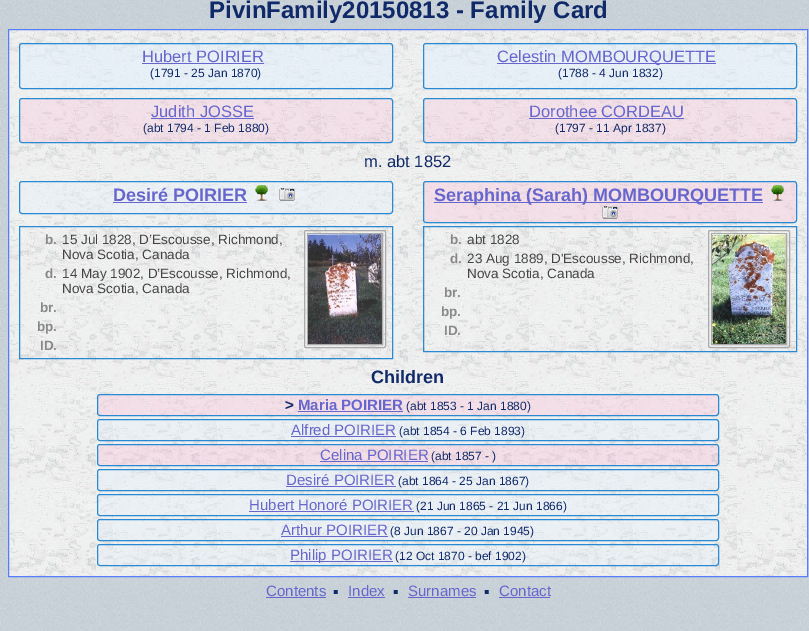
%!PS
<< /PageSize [809 631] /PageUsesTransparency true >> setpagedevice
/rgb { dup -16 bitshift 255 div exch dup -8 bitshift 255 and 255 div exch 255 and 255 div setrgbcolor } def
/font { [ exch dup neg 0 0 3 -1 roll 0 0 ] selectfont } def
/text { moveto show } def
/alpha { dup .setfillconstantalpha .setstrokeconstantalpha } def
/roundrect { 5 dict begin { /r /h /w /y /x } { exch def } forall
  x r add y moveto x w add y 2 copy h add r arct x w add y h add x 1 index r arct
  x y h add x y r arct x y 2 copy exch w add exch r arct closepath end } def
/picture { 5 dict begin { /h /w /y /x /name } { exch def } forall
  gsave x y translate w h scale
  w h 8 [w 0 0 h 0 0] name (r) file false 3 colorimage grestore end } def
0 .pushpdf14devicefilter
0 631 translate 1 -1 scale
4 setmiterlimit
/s1 { /LiberationSans-Bold 24 font 16#102A69 rgb } def
/s2 { /LiberationSans-Regular 16.5 font 16#6666CC rgb } def
/s3 { /LiberationSans-Regular 12 font 16#102A69 rgb } def
/s4 { /LiberationSans-Regular 16.5 font 16#102A69 rgb } def
/s5 { /LiberationSans-Bold 18 font 16#6666CC rgb } def
/s6 { /LiberationSans-Bold 13.5 font 16#888888 rgb } def
/s7 { /LiberationSans-Regular 13.5 font 16#444444 rgb } def
/s8 { /LiberationSans-Bold 18 font 16#102A69 rgb } def
/s9 { /LiberationSans-Bold 15 font 16#102A69 rgb } def
/s10 { /LiberationSans-Bold 15 font 16#6666CC rgb } def
/s11 { /LiberationSans-Regular 15 font 16#6666CC rgb } def
/s12 { /LiberationSans-Bold 27 font 16#102A69 rgb } def
16#FFFFFF rgb
0 0 809 631 rectfill
(pic1.raw) 0 0 809 631 picture
s1
(PivinFamily20150813 - Family Card) 209 18 text
(pic2.raw) 9 30 798 546 picture
16#567EFC rgb
8.5 29.5 799 547 rectstroke
0.51 alpha
16#E0EFFE rgb
19.5 43.5 373 45 2.5 roundrect fill
1 alpha
16#2989D3 rgb
19.5 43.5 373 45 2.5 roundrect stroke
s2
(Hubert POIRIER) 142 62 text
142 63 122 1 rectfill
s3
(\(1791 - 25 Jan 1870\)) 150 77 text
0.51 alpha
16#E0EFFE rgb
423.5 43.5 373 45 2.5 roundrect fill
1 alpha
16#2989D3 rgb
423.5 43.5 373 45 2.5 roundrect stroke
16#6666CC rgb
497 63 219 1 rectfill
s2
(Celestin MOMBOURQUETTE) 497 62 text
s3
(\(1788 - 4 Jun 1832\)) 558 77 text
0.28 alpha
16#FCB7D6 rgb
19.5 98.5 373 44 2.5 roundrect fill
1 alpha
16#2989D3 rgb
19.5 98.5 373 44 2.5 roundrect stroke
s2
(Judith JOSSE) 151 117 text
151 118 103 1 rectfill
s3
(\(abt 1794 - 1 Feb 1880\)) 143 132 text
0.28 alpha
16#FCB7D6 rgb
423.5 98.5 373 44 2.5 roundrect fill
1 alpha
16#2989D3 rgb
423.5 98.5 373 44 2.5 roundrect stroke
s2
(Dorothee CORDEAU) 529 117 text
529 118 155 1 rectfill
s3
(\(1797 - 11 Apr 1837\)) 555 132 text
s4
(m. abt 1852) 364 167 text
0.3 alpha
16#E0EFFE rgb
19.5 181.5 373 32 2.5 roundrect fill
1 alpha
16#2989D3 rgb
19.5 181.5 373 32 2.5 roundrect stroke
s5
(Desiré POIRIER) 113 201 text
113 202 134 1 rectfill
(pic3.raw) 255 185 13 16 picture
(pic4.raw) 279 188 16 13 picture
0.3 alpha
16#FCB7D6 rgb
423.5 181.5 373 41 2.5 roundrect fill
1 alpha
16#2989D3 rgb
423.5 181.5 373 41 2.5 roundrect stroke
16#6666CC rgb
434 202 329 1 rectfill
(Seraphina \(Sarah\) MOMBOURQUETTE) 434 201 text
(pic5.raw) 771 185 13 16 picture
(pic6.raw) 602 206 16 13 picture
16#2989D3 rgb
19.5 226.5 373 132 rectstroke
s6
(b.) 45 244 text
s7
(15 Jul 1828, D’Escousse, Richmond,) 62 244 text
(Nova Scotia, Canada) 62 259 text
16#AAAAAA rgb
304.5 230.5 81 117 1.5 roundrect stroke
307.5 233.5 75 111 rectstroke
(pic7.raw) 308 234 74 110 picture
s6
(d.) 45 278 text
s7
(14 May 1902, D’Escousse, Richmond,) 62 278 text
(Nova Scotia, Canada) 62 293 text
s6
(br.) 40 312 text
(bp.) 37 331 text
(ID.) 40 350 text
16#2989D3 rgb
423.5 226.5 373 125 rectstroke
s6
(b.) 450 244 text
s7
(abt 1828) 467 244 text
16#AAAAAA rgb
708.5 230.5 81 117 1.5 roundrect stroke
711.5 233.5 75 111 rectstroke
(pic8.raw) 712 234 74 110 picture
s6
(d.) 450 263 text
s7
(23 Aug 1889, D'Escousse, Richmond,) 467 263 text
(Nova Scotia, Canada) 467 278 text
s6
(br.) 444 297 text
(bp.) 441 316 text
(ID.) 444 335 text
s8
(Children) 371 383 text
0.3 alpha
16#FCB7D6 rgb
97.5 394.5 621 21 2.5 roundrect fill
1 alpha
16#2989D3 rgb
97.5 394.5 621 21 2.5 roundrect stroke
s9
(>) 285 410 text
s10
(Maria POIRIER) 298 410 text
298 411 105 1 rectfill
s3
(\(abt 1853 - 1 Jan 1880\)) 406 410 text
0.3 alpha
16#E0EFFE rgb
97.5 419.5 621 21 2.5 roundrect fill
1 alpha
16#2989D3 rgb
97.5 419.5 621 21 2.5 roundrect stroke
s11
(Alfred POIRIER) 291 435 text
291 436 105 1 rectfill
s3
(\(abt 1854 - 6 Feb 1893\)) 399 435 text
0.3 alpha
16#FCB7D6 rgb
97.5 444.5 621 21 2.5 roundrect fill
1 alpha
16#2989D3 rgb
97.5 444.5 621 21 2.5 roundrect stroke
s11
(Celina POIRIER) 320 460 text
320 461 108 1 rectfill
s3
(\(abt 1857 - \)) 431 460 text
0.3 alpha
16#E0EFFE rgb
97.5 469.5 621 21 2.5 roundrect fill
1 alpha
16#2989D3 rgb
97.5 469.5 621 21 2.5 roundrect stroke
s11
(Desiré POIRIER) 286 485 text
286 486 110 1 rectfill
s3
(\(abt 1864 - 25 Jan 1867\)) 398 485 text
0.3 alpha
16#E0EFFE rgb
97.5 494.5 621 21 2.5 roundrect fill
1 alpha
16#2989D3 rgb
97.5 494.5 621 21 2.5 roundrect stroke
s11
(Hubert Honoré POIRIER) 249 510 text
249 511 165 1 rectfill
s3
(\(21 Jun 1865 - 21 Jun 1866\)) 416 510 text
0.3 alpha
16#E0EFFE rgb
97.5 519.5 621 21 2.5 roundrect fill
1 alpha
16#2989D3 rgb
97.5 519.5 621 21 2.5 roundrect stroke
s11
(Arthur POIRIER) 281 535 text
281 536 107 1 rectfill
s3
(\(8 Jun 1867 - 20 Jan 1945\)) 390 535 text
0.3 alpha
16#E0EFFE rgb
97.5 544.5 621 21 2.5 roundrect fill
1 alpha
16#2989D3 rgb
97.5 544.5 621 21 2.5 roundrect stroke
16#6666CC rgb
290 561 103 1 rectfill
s11
(Philip POIRIER) 290 560 text
s3
(\(12 Oct 1870 - bef 1902\)) 395 560 text
s11
(Contents) 266 596 text
266 597 60 1 rectfill
s12
(·) 332 601 text
s11
(Index) 348 596 text
348 597 37 1 rectfill
s12
(·) 392 601 text
s11
(Surnames) 408 596 text
408 597 68 1 rectfill
s12
(·) 483 601 text
s11
(Contact) 499 596 text
499 597 51 1 rectfill
.poppdf14devicefilter showpage
